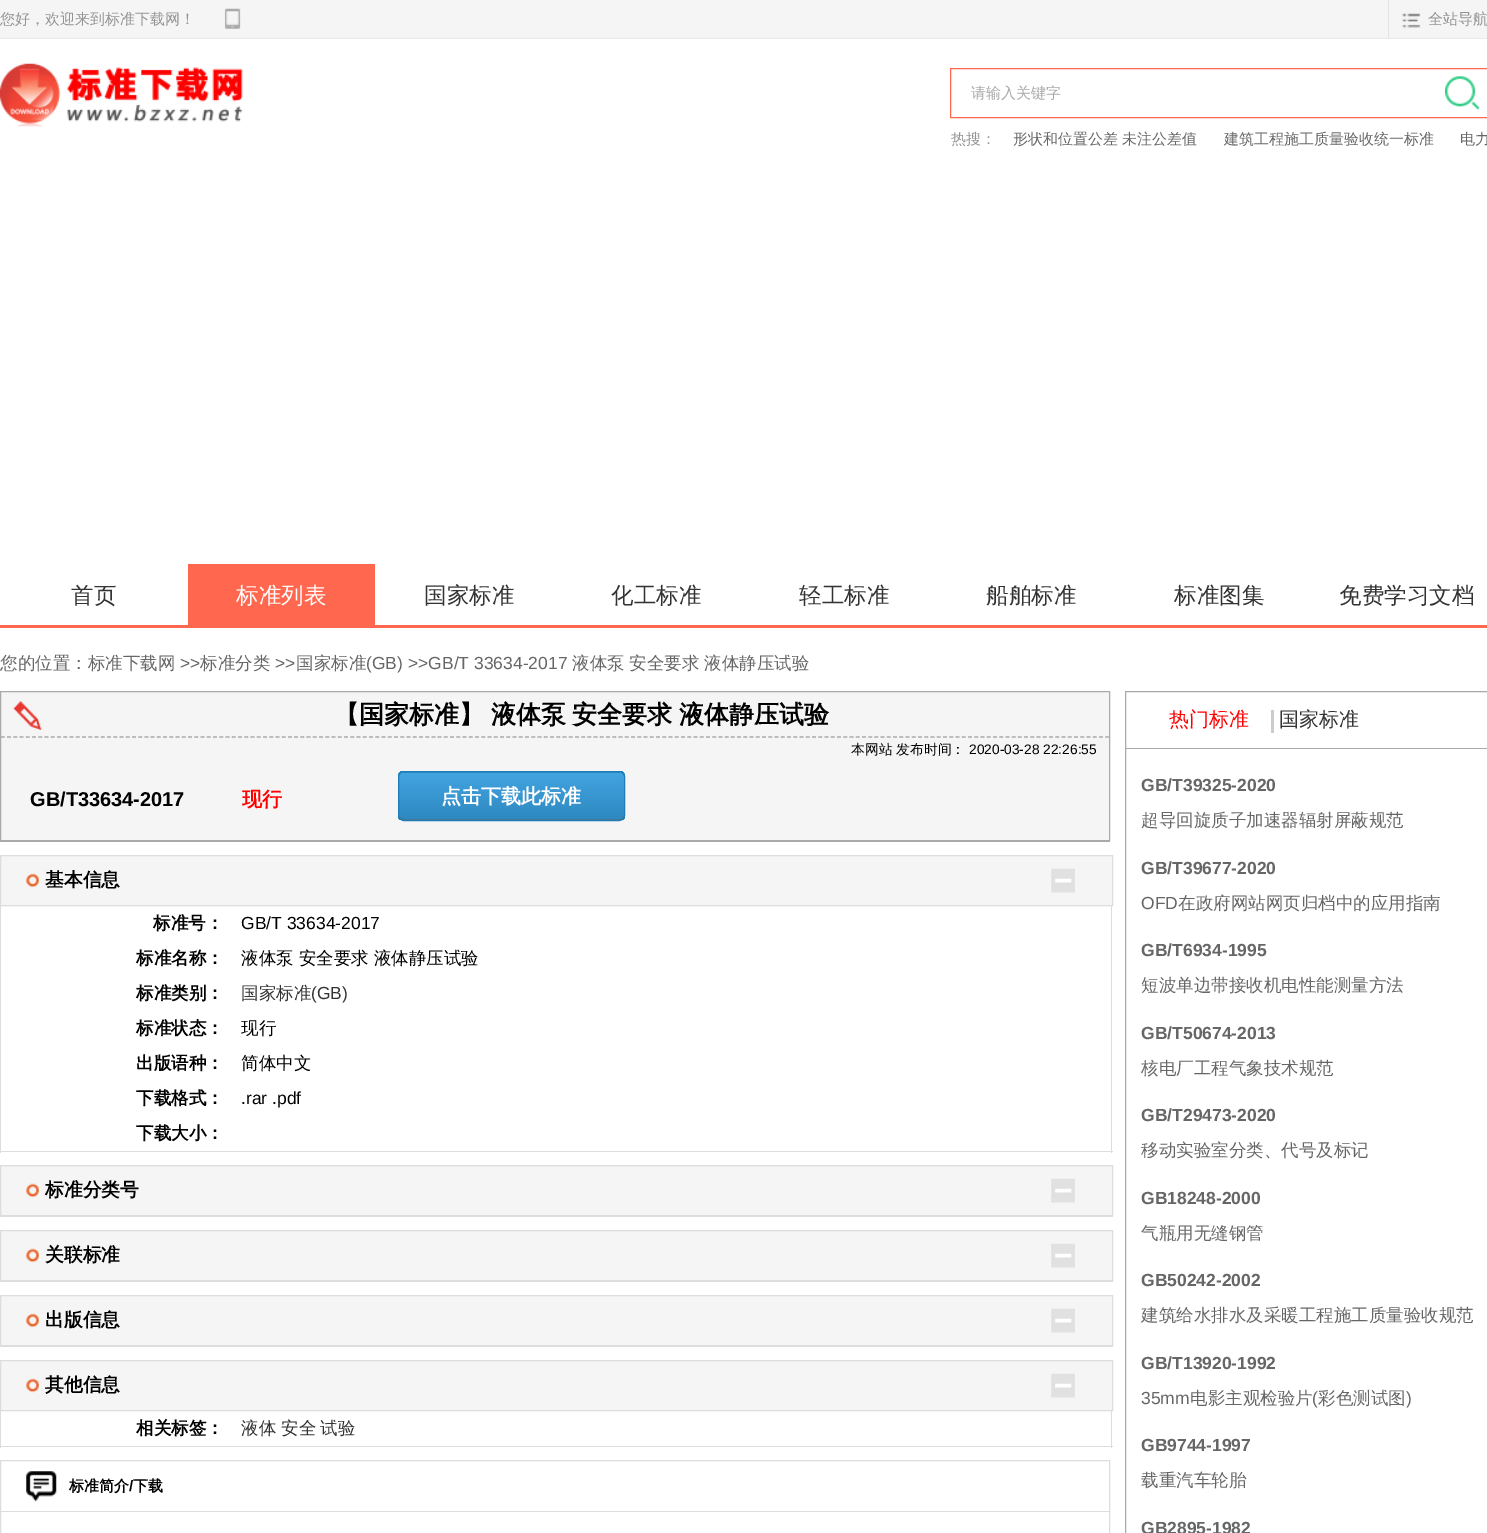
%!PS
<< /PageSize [1487 1533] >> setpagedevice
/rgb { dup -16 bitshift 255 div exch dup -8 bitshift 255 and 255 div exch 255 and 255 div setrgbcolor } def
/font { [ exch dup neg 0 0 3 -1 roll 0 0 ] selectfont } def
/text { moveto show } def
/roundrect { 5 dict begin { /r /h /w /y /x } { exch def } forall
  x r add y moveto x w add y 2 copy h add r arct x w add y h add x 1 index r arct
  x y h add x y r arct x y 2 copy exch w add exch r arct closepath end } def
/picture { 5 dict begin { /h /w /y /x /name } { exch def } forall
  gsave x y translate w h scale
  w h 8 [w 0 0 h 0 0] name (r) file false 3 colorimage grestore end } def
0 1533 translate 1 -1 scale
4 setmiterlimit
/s1 { /WenQuanYiZenHei-Medium 15 font 16#949494 rgb } def
/s2 { /WenQuanYiZenHei-Medium 15 font 16#A8A8A8 rgb } def
/s3 { /WenQuanYiZenHei-Medium 15 font 16#666666 rgb } def
/s4 { /WenQuanYiZenHei-Medium 22.5 font 16#333333 rgb } def
/s5 { /WenQuanYiZenHei-Medium 22.5 font 16#FFFFFF rgb } def
/s6 { /WenQuanYiZenHei-Medium 17.5 font 16#666666 rgb } def
/s7 { /LiberationSans-Regular 17.5 font 16#666666 rgb } def
/s8 { /WenQuanYiZenHei-Bold 25 font 16#000000 rgb } def
/s9 { /WenQuanYiZenHei-Medium 13.75 font 16#000000 rgb } def
/s10 { /LiberationSans-Regular 13.75 font 16#000000 rgb } def
/s11 { /LiberationSans-Bold 20 font 16#000000 rgb } def
/s12 { /WenQuanYiZenHei-Bold 20 font 16#FF0000 rgb } def
/s13 { /WenQuanYiZenHei-Bold 20 font 16#FFFFFF rgb } def
/s14 { /WenQuanYiZenHei-Bold 18.75 font 16#000000 rgb } def
/s15 { /WenQuanYiZenHei-Bold 17.5 font 16#000000 rgb } def
/s16 { /LiberationSans-Regular 17.5 font 16#000000 rgb } def
/s17 { /WenQuanYiZenHei-Medium 17.5 font 16#000000 rgb } def
/s18 { /WenQuanYiZenHei-Medium 17.5 font 16#333333 rgb } def
/s19 { /LiberationSans-Regular 17.5 font 16#333333 rgb } def
/s20 { /WenQuanYiZenHei-Bold 15 font 16#000000 rgb } def
/s21 { /LiberationSans-Bold 15 font 16#000000 rgb } def
/s22 { /WenQuanYiZenHei-Medium 20 font 16#FF0000 rgb } def
/s23 { /WenQuanYiZenHei-Medium 20 font 16#333333 rgb } def
/s24 { /LiberationSans-Bold 17.5 font 16#666666 rgb } def
16#FFFFFF rgb
0 0 1487 1533 rectfill
16#F5F5F5 rgb
0 0 1487 38 rectfill
16#E9E9E9 rgb
0 38 1487 1 rectfill
s1
(您好，欢迎来到标准下载网！) 0 24 text
(pic1.raw) 224 8 17 21 picture
16#E3E3E3 rgb
1388 0 1 38 rectfill
(pic2.raw) 1402 13 19 15 picture
s1
(全站导航) 1428 24 text
(pic3.raw) 0 63 243 64 picture
16#FF684F rgb
950.5 68.5 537 49 rectstroke
s2
(请输入关键字) 971 98 text
(pic4.raw) 1445 76 36 35 picture
s1
(热搜：) 951 144 text
s3
(形状和位置公差 未注公差值) 1013 144 text
(建筑工程施工质量验收统一标准) 1224 144 text
(电力) 1460 144 text
16#FF684F rgb
0 625 1487 3 rectfill
s4
(首页) 71 603 text
16#FF684F rgb
188 564 187 61 rectfill
s5
(标准列表) 236 603 text
s4
(国家标准) 424 603 text
(化工标准) 611 603 text
(轻工标准) 799 603 text
(船舶标准) 986 603 text
(标准图集) 1174 603 text
(免费学习文档) 1339 603 text
s6
(您的位置：标准下载网) 0 669 text
s7
(>>) 180 669 text
s6
(标准分类) 200 669 text
s7
(>>) 275 669 text
s6
(国家标准) 296 669 text
s7
(\(GB\) >>GB/T 33634-2017) 366 669 text
s6
(液体泵) 572 669 text
(安全要求) 629 669 text
(液体静压试验) 704 669 text
16#F5F5F5 rgb
0.5 691.5 moveto 1109.5 691.5 lineto 1109.5 840.5 lineto 0.5 840.5 lineto closepath gsave fill grestore
16#AAAAAA rgb
stroke
(pic5.raw) 13 701 29 29 picture
1.2 setlinewidth
[3.75 2.49] 0 setdash
1 737 moveto 1109 737 lineto stroke
s8
(【国家标准】) 334 723 text
491 723 moveto -1 0 32 (液体泵 安全要求 液体静压试验) widthshow
s9
(本网站 发布时间：) 851 754 text
s10
(2020-03-28 22:26:55) 969 754 text
s11
(GB/T33634-2017) 30 806 text
s12
(现行) 242 806 text
gsave
398 771 227 50 6 roundrect clip newpath
gsave 398 771 moveto 625 771 lineto 625 773 lineto 398 773 lineto closepath clip newpath
<< /ShadingType 2 /ColorSpace /DeviceRGB /Coords [511 725 511 773] /Extend [true true] /Function << /FunctionType 2 /Domain [0 1] /C0 [0.259 0.643 0.878] /C1 [0.18 0.533 0.753] /N 1 >> >> shfill grestore
gsave 398 773 moveto 625 773 lineto 625 820 lineto 398 820 lineto closepath clip newpath
<< /ShadingType 2 /ColorSpace /DeviceRGB /Coords [511 773 511 820] /Extend [true true] /Function << /FunctionType 2 /Domain [0 1] /C0 [0.259 0.643 0.878] /C1 [0.18 0.533 0.753] /N 1 >> >> shfill grestore
grestore
16#497897 rgb
399 814 moveto 399 815 lineto 399 818 401 820 404 820 curveto 619 820 lineto 622 820 624 818 624 815 curveto 624 814 lineto 624 817 622 819 619 819 curveto 404 819 lineto 401 819 399 817 399 814 curveto closepath fill
16#1E7DB9 rgb
1 setlinewidth
[] 0 setdash
398.5 771.5 226 49 5.5 roundrect stroke
s13
(点击下载此标准) 441 803 text
16#AAAAAA rgb
0 841 1110 1 rectfill
16#F5F5F5 rgb
0.5 855.5 moveto 1112.5 855.5 lineto 1112.5 905.5 lineto 0.5 905.5 lineto closepath gsave fill grestore
16#DDDDDD rgb
stroke
(pic6.raw) 26 873 13 15 picture
s14
(基本信息) 45 886 text
(pic7.raw) 1051 868 24 25 picture
16#DDDDDD rgb
1111 906 1 247 rectfill
0 1151 1113 1 rectfill
0 906 1 247 rectfill
s15
(标准号：) 153 929 text
s16
(GB/T 33634-2017) 241 929 text
s15
(标准名称：) 136 964 text
s17
(液体泵 安全要求 液体静压试验) 241 964 text
s15
(标准类别：) 136 999 text
s18
(国家标准) 241 999 text
s19
(\(GB\)) 311 999 text
s15
(标准状态：) 136 1034 text
s17
(现行) 241 1034 text
s15
(出版语种：) 136 1069 text
s17
(简体中文) 241 1069 text
s15
(下载格式：) 136 1104 text
s16
(.rar .pdf) 241 1104 text
s15
(下载大小：) 136 1139 text
16#F5F5F5 rgb
0.5 1165.5 moveto 1112.5 1165.5 lineto 1112.5 1215.5 lineto 0.5 1215.5 lineto closepath gsave fill grestore
16#DDDDDD rgb
stroke
(pic6.raw) 26 1183 13 15 picture
s14
(标准分类号) 45 1196 text
(pic7.raw) 1051 1178 24 25 picture
16#DDDDDD rgb
0 1216 1113 1 rectfill
16#F5F5F5 rgb
0.5 1230.5 moveto 1112.5 1230.5 lineto 1112.5 1280.5 lineto 0.5 1280.5 lineto closepath gsave fill grestore
16#DDDDDD rgb
stroke
(pic6.raw) 26 1248 13 15 picture
s14
(关联标准) 45 1261 text
(pic7.raw) 1051 1243 24 25 picture
16#DDDDDD rgb
0 1281 1113 1 rectfill
16#F5F5F5 rgb
0.5 1295.5 moveto 1112.5 1295.5 lineto 1112.5 1345.5 lineto 0.5 1345.5 lineto closepath gsave fill grestore
16#DDDDDD rgb
stroke
(pic6.raw) 26 1313 13 15 picture
s14
(出版信息) 45 1326 text
(pic7.raw) 1051 1308 24 25 picture
16#DDDDDD rgb
0 1346 1113 1 rectfill
16#F5F5F5 rgb
0.5 1360.5 moveto 1112.5 1360.5 lineto 1112.5 1410.5 lineto 0.5 1410.5 lineto closepath gsave fill grestore
16#DDDDDD rgb
stroke
(pic6.raw) 26 1378 13 15 picture
s14
(其他信息) 45 1391 text
(pic7.raw) 1051 1373 24 25 picture
16#DDDDDD rgb
1111 1411 1 37 rectfill
0 1446 1113 1 rectfill
0 1411 1 37 rectfill
s15
(相关标签：) 136 1434 text
s18
(液体) 241 1434 text
(安全) 281 1434 text
(试验) 320 1434 text
16#DDDDDD rgb
0.5 1460.5 1109 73 rectstroke
1 1511 1108 1 rectfill
(pic8.raw) 26 1471 31 31 picture
s20
(标准简介) 69 1491 text
s21
(/) 129 1491 text
s20
(下载) 133 1491 text
16#AAAAAA rgb
1125.5 691.5 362 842 rectstroke
1126 748 361 1 rectfill
s22
(热门标准) 1169 726 text
16#CCCCCC rgb
1271 710 3 23 rectfill
s23
(国家标准) 1279 726 text
s24
(GB/T39325-2020) 1141 791 text
s6
(超导回旋质子加速器辐射屏蔽规范) 1141 826 text
s24
(GB/T39677-2020) 1141 874 text
s7
(OFD) 1141 909 text
s6
(在政府网站网页归档中的应用指南) 1178 909 text
s24
(GB/T6934-1995) 1141 956 text
s6
(短波单边带接收机电性能测量方法) 1141 991 text
s24
(GB/T50674-2013) 1141 1039 text
s6
(核电厂工程气象技术规范) 1141 1074 text
s24
(GB/T29473-2020) 1141 1121 text
s6
(移动实验室分类、代号及标记) 1141 1156 text
s24
(GB18248-2000) 1141 1204 text
s6
(气瓶用无缝钢管) 1141 1239 text
s24
(GB50242-2002) 1141 1286 text
s6
(建筑给水排水及采暖工程施工质量验收规范) 1141 1321 text
s24
(GB/T13920-1992) 1141 1369 text
s7
(35mm) 1141 1404 text
s6
(电影主观检验片) 1190 1404 text
s7
(\() 1312 1404 text
s6
(彩色测试图) 1318 1404 text
s7
(\)) 1406 1404 text
s24
(GB9744-1997) 1141 1451 text
s6
(载重汽车轮胎) 1141 1486 text
s24
(GB2895-1982) 1141 1534 text
showpage
